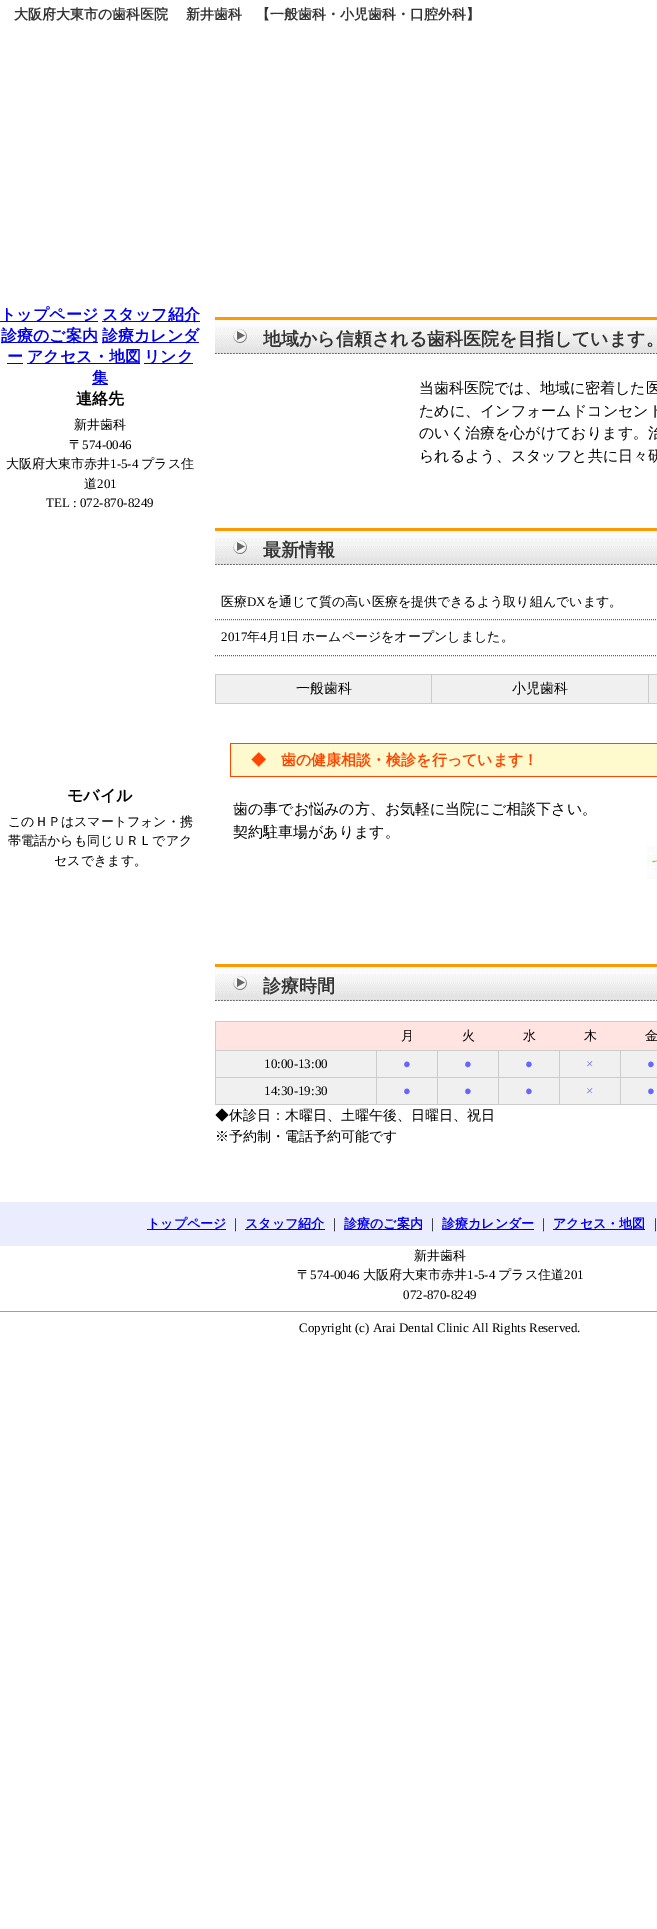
%!PS
<< /PageSize [657 1929] >> setpagedevice
/rgb { dup -16 bitshift 255 div exch dup -8 bitshift 255 and 255 div exch 255 and 255 div setrgbcolor } def
/font { [ exch dup neg 0 0 3 -1 roll 0 0 ] selectfont } def
/text { moveto show } def
/picture { 5 dict begin { /h /w /y /x /name } { exch def } forall
  gsave x y translate w h scale
  w h 8 [w 0 0 h 0 0] name (r) file false 3 colorimage grestore end } def
0 1929 translate 1 -1 scale
4 setmiterlimit
/s1 { /WenQuanYiZenHei-Bold 16 font 16#0000EE rgb } def
/s2 { /WenQuanYiZenHei-Bold 16 font 16#000000 rgb } def
/s3 { /WenQuanYiZenHei-Medium 13 font 16#000000 rgb } def
/s4 { /LiberationSerif-Regular 13 font 16#000000 rgb } def
/s5 { /WenQuanYiZenHei-Bold 18 font 16#333333 rgb } def
/s6 { /WenQuanYiZenHei-Medium 15 font 16#000000 rgb } def
/s7 { /WenQuanYiZenHei-Medium 14 font 16#000000 rgb } def
/s8 { /WenQuanYiZenHei-Bold 15 font 16#FF4500 rgb } def
/s9 { /LiberationSerif-Regular 13 font 16#6666FF rgb } def
/s10 { /WenQuanYiZenHei-Bold 13 font 16#0000EE rgb } def
16#FFFFFF rgb
0 0 657 1929 rectfill
/WenQuanYiZenHei-Bold 14 font
16#333333 rgb
14 19 moveto -1 0 32 (大阪府大東市の歯科医院 　新井歯科　【一般歯科・小児歯科・口腔外科】) widthshow
16#0000EE rgb
0 321 98 1 rectfill
s1
(トップページ) 0 320 text
102 321 98 1 rectfill
(スタッフ紹介) 102 320 text
1 342 97 1 rectfill
(診療のご案内) 1 341 text
102 342 97 1 rectfill
(診療カレンダ) 102 341 text
(ー) 7 362 text
7 363 16 1 rectfill
27 363 113 1 rectfill
(アクセス・地図) 27 362 text
144 363 49 1 rectfill
(リンク) 144 362 text
92 384 16 1 rectfill
(集) 92 383 text
s2
(連絡先) 76 404 text
s3
(新井歯科) 74 429 text
(〒) 69 449 text
s4
(574-0046) 82 449 text
s3
(大阪府大東市赤井) 6 468 text
s4
(1-5-4) 110 468 text
s3
(プラス住) 141 468 text
(道) 84 488 text
s4
(201) 97 488 text
(TEL : 072-870-8249) 46 507 text
s2
(モバイル) 67 801 text
s3
(このＨＰはスマートフォン・携) 8 826 text
(帯電話からも同じＵＲＬでアク) 8 845 text
(セスできます。) 54 865 text
(pic1.raw) 215 317 442 37 picture
s5
(地域から信頼される歯科医院を目指しています。) 263 345 text
s6
(当歯科医院では、地域に密着した医) 419 393 text
(ために、インフォームドコンセント) 419 416 text
(のいく治療を心がけております。治) 419 438 text
(られるよう、スタッフと共に日々研) 419 461 text
(pic1.raw) 215 528 442 37 picture
s5
(最新情報) 263 556 text
16#666666 rgb
[1 1] 0 setdash
215 619.5 moveto 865 619.5 lineto stroke
s3
(医療) 221 606 text
s4
(DX) 247 606 text
s3
(を通じて質の高い医療を提供できるよう取り組んでいます。) 266 606 text
16#666666 rgb
215 655.5 moveto 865 655.5 lineto stroke
s4
(2017) 221 641 text
s3
(年) 247 641 text
s4
(4) 260 641 text
s3
(月) 267 641 text
s4
(1) 280 641 text
/WenQuanYiZenHei-Medium 13 font
286 641 moveto -1 0 32 (日 ホームページをオープンしました。) widthshow
16#CCCCCC rgb
215 674 442 30 rectfill
16#F0F0F0 rgb
216 675 215 28 rectfill
s7
(一般歯科) 296 693 text
16#F0F0F0 rgb
432 675 216 28 rectfill
s7
(小児歯科) 512 693 text
16#F0F0F0 rgb
649 675 8 28 rectfill
16#FF4500 rgb
230 743 427 34 rectfill
16#FFFACD rgb
231 744 426 32 rectfill
s8
(◆　歯の健康相談・検診を行っています！) 251 765 text
s6
(歯の事でお悩みの方、お気軽に当院にご相談下さい。) 233 814 text
(契約駐車場があります。) 233 837 text
(pic2.raw) 647 846 10 33 picture
(pic1.raw) 215 964 442 37 picture
s5
(診療時間) 263 992 text
16#CCCCCC rgb
215 1021 442 84 rectfill
16#FFE4E1 rgb
216 1022 441 28 rectfill
s3
(月) 401 1040 text
(火) 462 1040 text
(水) 523 1040 text
(木) 584 1040 text
(金) 645 1040 text
16#F0F0F0 rgb
216 1051 160 26 rectfill
s4
(10:00-13:00) 264 1068 text
16#F0F0F0 rgb
377 1051 60 26 rectfill
s9
(●) 403 1068 text
16#F0F0F0 rgb
438 1051 60 26 rectfill
s9
(●) 464 1068 text
16#F0F0F0 rgb
499 1051 60 26 rectfill
s9
(●) 525 1068 text
16#F0F0F0 rgb
560 1051 60 26 rectfill
s9
(×) 586 1068 text
16#F0F0F0 rgb
621 1051 36 26 rectfill
s9
(●) 647 1068 text
16#F0F0F0 rgb
216 1078 160 26 rectfill
s4
(14:30-19:30) 264 1095 text
16#F0F0F0 rgb
377 1078 60 26 rectfill
s9
(●) 403 1095 text
16#F0F0F0 rgb
438 1078 60 26 rectfill
s9
(●) 464 1095 text
16#F0F0F0 rgb
499 1078 60 26 rectfill
s9
(●) 525 1095 text
16#F0F0F0 rgb
560 1078 60 26 rectfill
s9
(×) 586 1095 text
16#F0F0F0 rgb
621 1078 36 26 rectfill
s9
(●) 647 1095 text
s7
(◆休診日：木曜日、土曜午後、日曜日、祝日) 215 1120 text
(※予約制・電話予約可能です) 215 1141 text
16#ECECFF rgb
0 1202 657 44 rectfill
16#0000EE rgb
147 1229 79 1 rectfill
s10
(トップページ) 147 1228 text
s3
(｜) 229 1228 text
16#0000EE rgb
245 1229 80 1 rectfill
s10
(スタッフ紹介) 245 1228 text
s3
(｜) 328 1228 text
16#0000EE rgb
344 1229 78 1 rectfill
s10
(診療のご案内) 344 1228 text
s3
(｜) 426 1228 text
16#0000EE rgb
442 1229 92 1 rectfill
s10
(診療カレンダー) 442 1228 text
s3
(｜) 537 1228 text
16#0000EE rgb
553 1229 92 1 rectfill
s10
(アクセス・地図) 553 1228 text
s3
(｜) 649 1228 text
(新井歯科) 414 1260 text
(〒) 297 1279 text
s4
(574-0046) 310 1279 text
s3
(大阪府大東市赤井) 363 1279 text
s4
(1-5-4) 467 1279 text
s3
(プラス住道) 498 1279 text
s4
(201) 564 1279 text
(072-870-8249) 403 1299 text
16#9F9F9F rgb
0 1311 657 1 rectfill
s4
(Copyright \(c\) Arai Dental Clinic All Rights Reserved.) 299 1332 text
showpage
